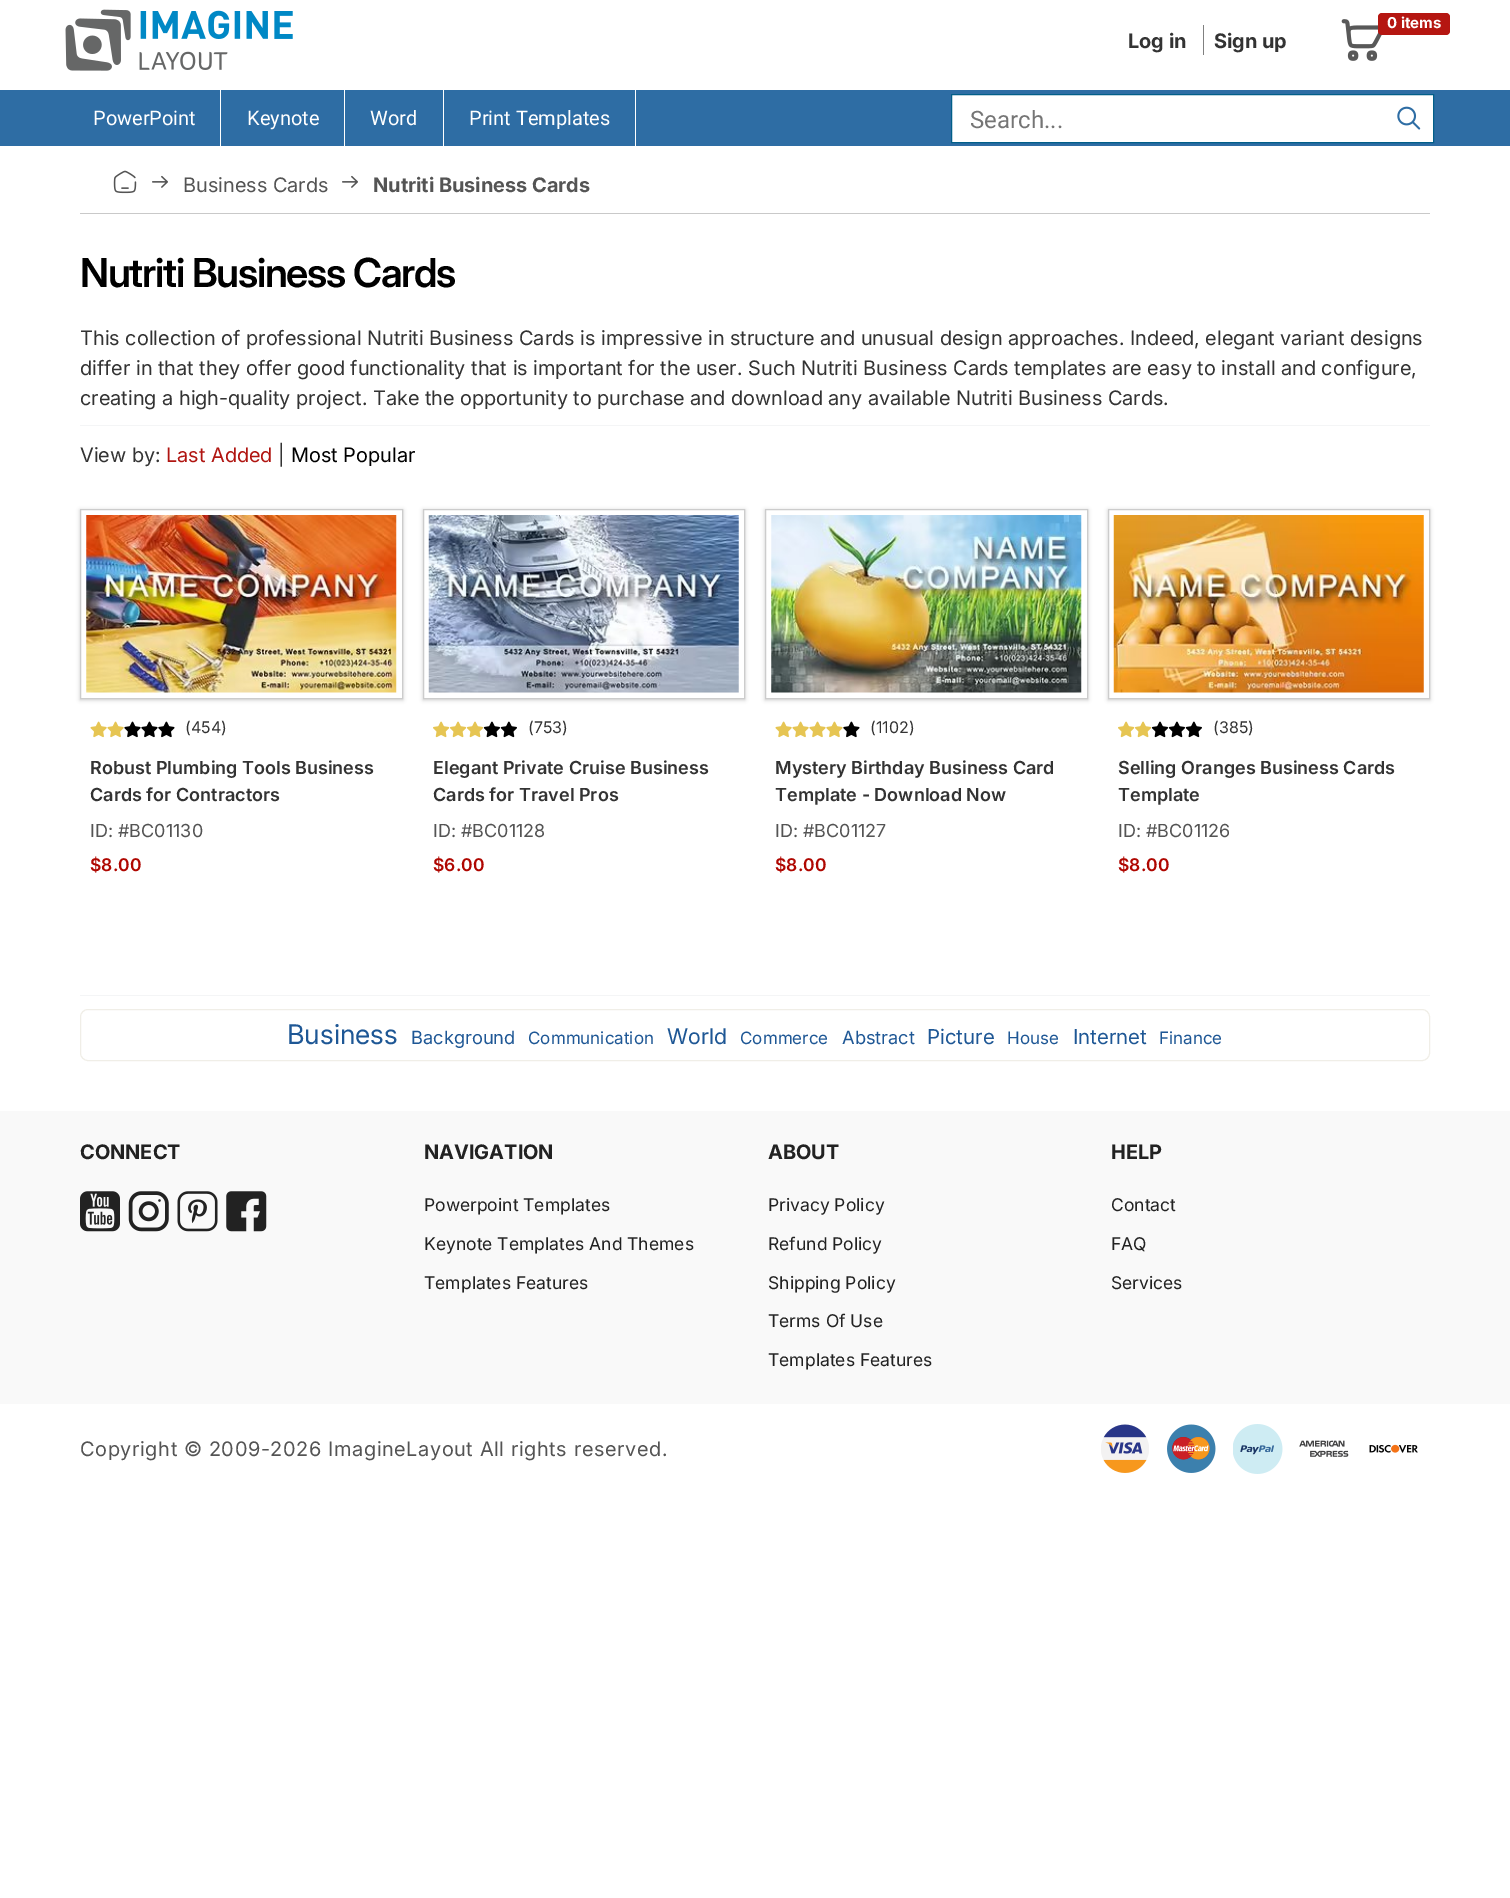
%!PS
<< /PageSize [1510 1898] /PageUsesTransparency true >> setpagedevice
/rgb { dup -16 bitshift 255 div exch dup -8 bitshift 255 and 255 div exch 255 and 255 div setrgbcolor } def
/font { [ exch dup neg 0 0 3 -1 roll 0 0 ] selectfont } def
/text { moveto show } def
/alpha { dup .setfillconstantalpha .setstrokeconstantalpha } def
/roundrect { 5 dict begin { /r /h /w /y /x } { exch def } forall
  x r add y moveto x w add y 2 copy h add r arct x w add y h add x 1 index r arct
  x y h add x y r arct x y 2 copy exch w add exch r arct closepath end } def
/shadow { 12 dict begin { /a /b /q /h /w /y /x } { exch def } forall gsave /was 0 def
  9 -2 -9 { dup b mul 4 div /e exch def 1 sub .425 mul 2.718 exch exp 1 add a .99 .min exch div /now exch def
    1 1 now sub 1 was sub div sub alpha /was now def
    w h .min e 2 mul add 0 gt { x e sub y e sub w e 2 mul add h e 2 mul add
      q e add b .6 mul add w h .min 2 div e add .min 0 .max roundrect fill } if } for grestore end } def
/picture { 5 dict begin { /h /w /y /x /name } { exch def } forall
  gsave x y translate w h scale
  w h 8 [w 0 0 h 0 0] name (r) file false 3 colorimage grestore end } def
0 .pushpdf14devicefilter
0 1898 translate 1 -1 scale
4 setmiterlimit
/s1 { /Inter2-Bold 15 font 16#FFFFFF rgb } def
/s2 { /Inter-Bold 20 font 16#333333 rgb } def
/s3 { /Roboto-Regular 20 font 16#FFFFFF rgb } def
/s4 { /Roboto-Regular 24 font 16#757575 rgb } def
/s5 { /Inter-Regular 20 font 16#545454 rgb } def
/s6 { /Inter-Bold 20 font 16#545454 rgb } def
/s7 { /Inter-Regular 20 font 16#333333 rgb } def
/s8 { /Inter-Regular 20 font 16#B01511 rgb } def
/s9 { /Inter-Regular 20 font 16#000000 rgb } def
/s10 { /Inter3-Regular 16 font 16#333333 rgb } def
/s11 { /Inter2-SemiBold 18 font 16#333333 rgb } def
/s12 { /Inter3-Regular 18 font 16#545454 rgb } def
/s13 { /Inter2-SemiBold 17.5 font 16#AF0701 rgb } def
/s14 { /Inter2-Regular 27 font 16#1E5795 rgb } def
/s15 { /Inter3-Regular 18.25 font 16#1E5795 rgb } def
/s16 { /Inter3-Regular 17 font 16#1E5795 rgb } def
/s17 { /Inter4-Regular 21.5 font 16#1E5795 rgb } def
/s18 { /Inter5-Regular 20.5 font 16#1E5795 rgb } def
/s19 { /Inter-Bold 20 font 16#222222 rgb } def
/s20 { /Inter3-Regular 17.5 font 16#222222 rgb } def
16#FFFFFF rgb
0 0 1510 1898 rectfill
(pic1.raw) 65 9 228 62 picture
(pic2.raw) 1341 19 41 42 picture
16#B51611 rgb
1378 13 72 22 4 roundrect fill
s1
(0 items) 1387 28 text
s2
(Log in) 1128 48 text
16#808080 rgb
1203 25 1 30 rectfill
s2
(Sign up) 1214 48 text
16#2E6DA4 rgb
0 90 1510 56 rectfill
16#FFFFFF rgb
220 90 1 56 rectfill
s3
(PowerPoint) 93 125 text
344 90 1 56 rectfill
(Keynote) 247 125 text
443 90 1 56 rectfill
(Word) 370 125 text
635 90 1 56 rectfill
(Print Templates) 469 125 text
951.5 94.5 moveto 1433.5 94.5 lineto 1433.5 142.5 lineto 951.5 142.5 lineto closepath gsave fill grestore
16#025F89 rgb
stroke
s4
(Search...) 970 128 text
(pic3.raw) 1397 106 24 24 picture
16#C9C9C9 rgb
80 213 1350 1 rectfill
(pic4.raw) 113 170 24 24 picture
(pic5.raw) 152 175 16 13 picture
s5
(Business Cards) 183 192 text
(pic5.raw) 342 175 16 13 picture
s6
(Nutriti Business Cards) 373 192 text
/Inter-SemiBold 40 font
16#000000 rgb
80 287 moveto -1.25 0 (Nutriti Business Cards) ashow
s7
(This collection of professional Nutriti Business Cards is impressive in structure and unusual design approaches. Indeed, elegant variant designs) 80 345 text
(differ in that they offer good functionality that is important for the user. Such Nutriti Business Cards templates are easy to install and configure,) 80 375 text
(creating a high-quality project. Take the opportunity to purchase and download any available Nutriti Business Cards.) 80 405 text
16#F4F5F6 rgb
80 425 1350 1 rectfill
s7
(View by:) 80 462 text
s8
(Last Added) 166 462 text
s7
(|) 278 462 text
s9
(Most Popular) 291 462 text
80 510 323 190 0 2 0.2 shadow
16#FFFFFF rgb
80.5 509.5 moveto 402.5 509.5 lineto 402.5 698.5 lineto 80.5 698.5 lineto closepath gsave fill grestore
16#CCCCCC rgb
stroke
(pic6.raw) 86 515 311 178 picture
(pic7.raw) 90 721 85 17 picture
s10
(\(454\)) 185 733 text
s11
(Robust Plumbing Tools Business) 90 774 text
(Cards for Contractors) 90 801 text
s12
(ID: #BC01130) 90 837 text
s13
($8.00) 90 871 text
16#000000 rgb
423 510 322 190 0 2 0.2 shadow
16#FFFFFF rgb
423.5 509.5 moveto 744.5 509.5 lineto 744.5 698.5 lineto 423.5 698.5 lineto closepath gsave fill grestore
16#CCCCCC rgb
stroke
(pic8.raw) 428 515 311 178 picture
(pic9.raw) 433 721 84 17 picture
s10
(\(753\)) 528 733 text
s11
(Elegant Private Cruise Business) 433 774 text
(Cards for Travel Pros) 433 801 text
s12
(ID: #BC01128) 433 837 text
s13
($6.00) 433 871 text
16#000000 rgb
765 510 323 190 0 2 0.2 shadow
16#FFFFFF rgb
765.5 509.5 moveto 1087.5 509.5 lineto 1087.5 698.5 lineto 765.5 698.5 lineto closepath gsave fill grestore
16#CCCCCC rgb
stroke
(pic10.raw) 771 515 311 178 picture
(pic11.raw) 775 721 85 17 picture
s10
(\(1102\)) 870 733 text
s11
(Mystery Birthday Business Card) 775 774 text
(Template - Download Now) 775 801 text
s12
(ID: #BC01127) 775 837 text
s13
($8.00) 775 871 text
16#000000 rgb
1108 510 322 190 0 2 0.2 shadow
16#FFFFFF rgb
1108.5 509.5 moveto 1429.5 509.5 lineto 1429.5 698.5 lineto 1108.5 698.5 lineto closepath gsave fill grestore
16#CCCCCC rgb
stroke
(pic12.raw) 1113 515 311 178 picture
(pic13.raw) 1118 721 84 17 picture
s10
(\(385\)) 1213 733 text
s11
(Selling Oranges Business Cards) 1118 774 text
(Template) 1118 801 text
s12
(ID: #BC01126) 1118 837 text
s13
($8.00) 1118 871 text
16#F4F5F6 rgb
80 995 1350 1 rectfill
16#F0EEE7 rgb
80.5 1009.5 1349 51 7.5 roundrect stroke
s14
(Business) 287 1044 text
s15
(Background) 411 1044 text
s16
(Communication) 528 1044 text
s17
(World) 667 1044 text
s16
(Commerce) 740 1044 text
s15
(Abstract) 842 1044 text
s18
(Picture) 927 1044 text
s16
(House) 1007 1044 text
s18
(Internet) 1073 1044 text
s16
(Finance) 1159 1044 text
16#F9F9F9 rgb
0 1111 1510 293 rectfill
s19
(CONNECT) 80 1159 text
(pic14.raw) 80 1191 40 41 picture
(pic15.raw) 128 1191 41 41 picture
(pic16.raw) 177 1191 41 41 picture
(pic17.raw) 226 1191 41 41 picture
(NAVIGATION) 424 1159 text
s20
(Powerpoint Templates) 424 1211 text
(Keynote Templates And Themes) 424 1250 text
(Templates Features) 424 1289 text
s19
(ABOUT) 768 1159 text
s20
(Privacy Policy) 768 1211 text
(Refund Policy) 768 1250 text
(Shipping Policy) 768 1289 text
(Terms Of Use) 768 1327 text
(Templates Features) 768 1366 text
s19
(HELP) 1111 1159 text
s20
(Contact) 1111 1211 text
(FAQ) 1111 1250 text
(Services) 1111 1289 text
/Inter-Regular 20 font
16#545454 rgb
80 1456 moveto 0.6 0 (Copyright © 2009-2026 ImagineLayout All rights reserved.) ashow
(pic18.raw) 1101 1424 48 49 picture
(pic19.raw) 1167 1424 49 49 picture
(pic20.raw) 1233 1424 50 50 picture
(pic21.raw) 1299 1440 50 17 picture
(pic22.raw) 1369 1444 49 9 picture
.poppdf14devicefilter showpage
